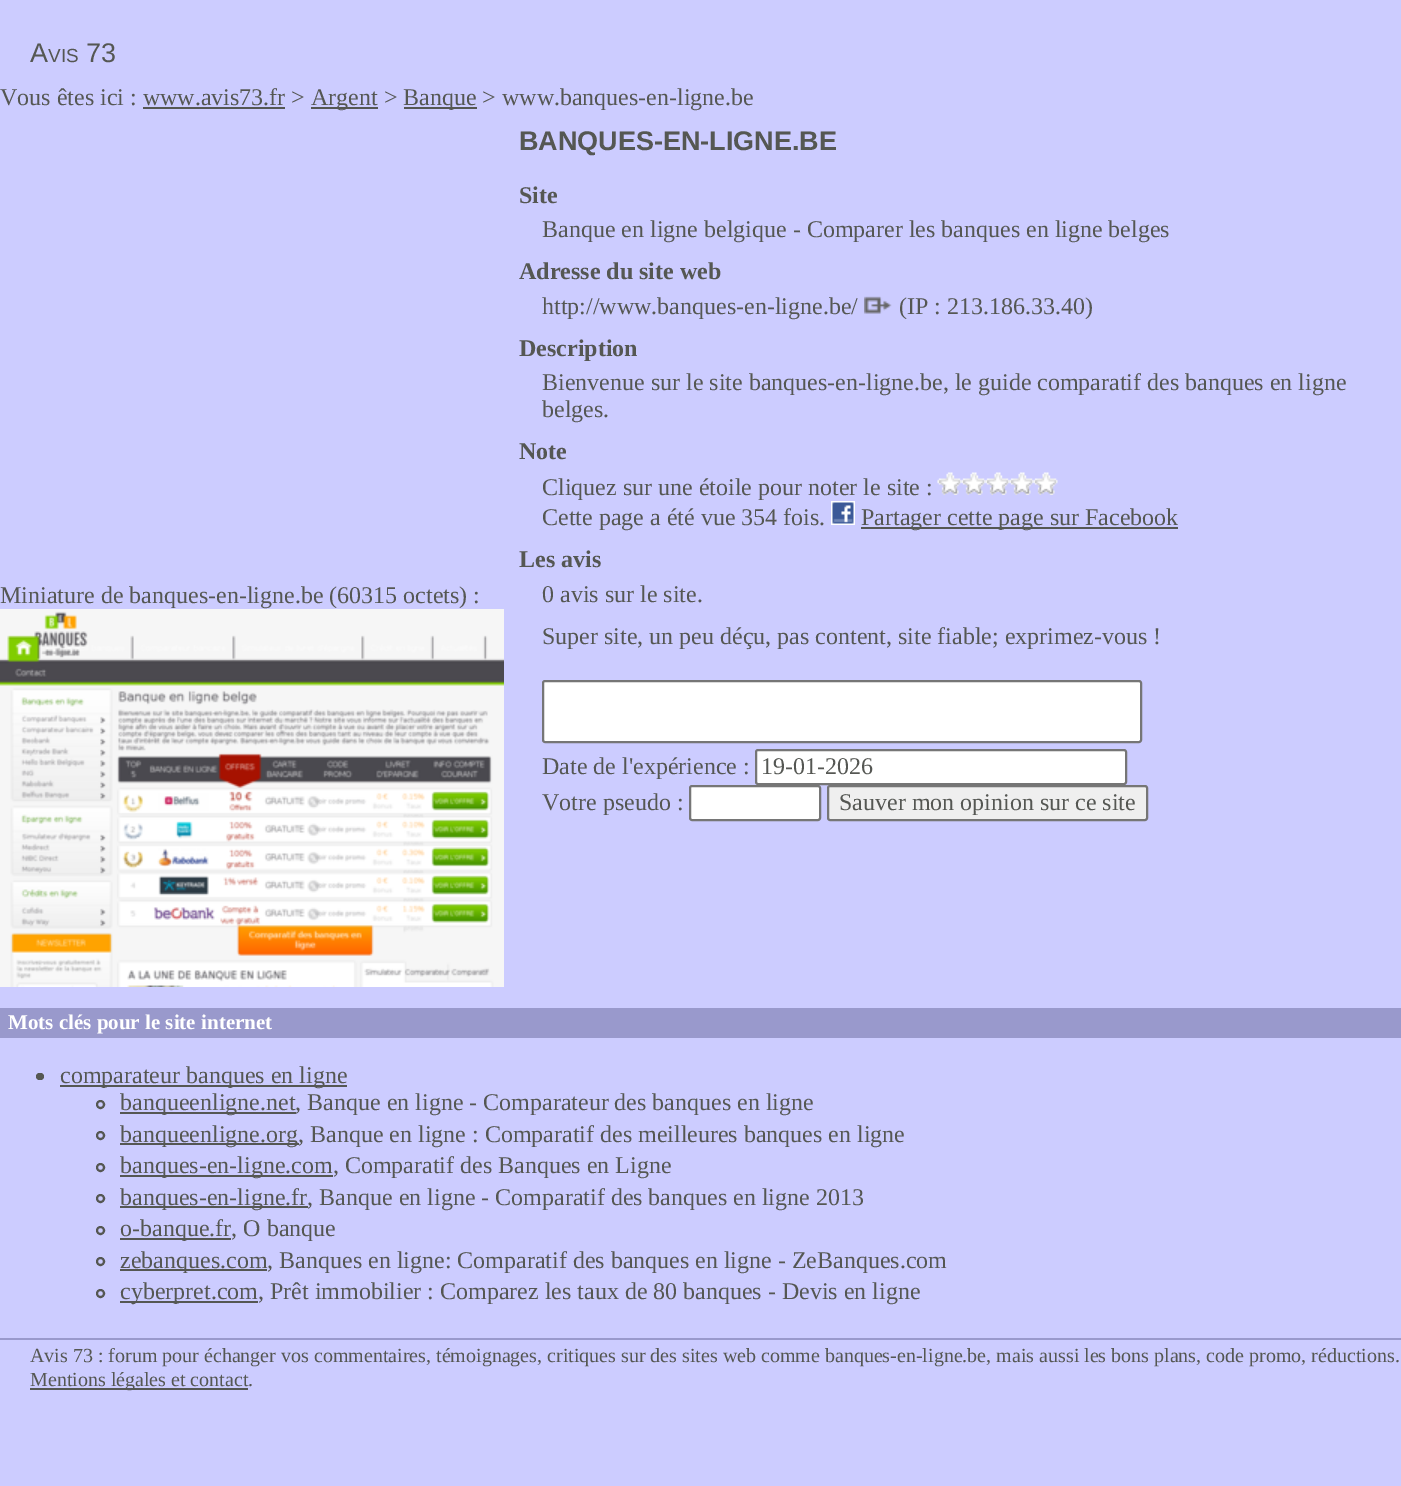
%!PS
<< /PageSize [1401 1486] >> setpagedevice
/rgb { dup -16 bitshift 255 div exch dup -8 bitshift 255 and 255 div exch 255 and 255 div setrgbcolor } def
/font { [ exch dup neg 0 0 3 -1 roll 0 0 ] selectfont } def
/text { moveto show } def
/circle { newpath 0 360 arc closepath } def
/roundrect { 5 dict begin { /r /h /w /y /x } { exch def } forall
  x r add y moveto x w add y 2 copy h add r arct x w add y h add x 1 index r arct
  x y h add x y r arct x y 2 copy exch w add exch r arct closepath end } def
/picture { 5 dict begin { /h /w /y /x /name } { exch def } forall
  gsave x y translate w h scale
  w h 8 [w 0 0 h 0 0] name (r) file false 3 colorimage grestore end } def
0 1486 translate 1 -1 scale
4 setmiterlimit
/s1 { /LiberationSans-Regular 27 font 16#555753 rgb } def
/s2 { /LiberationSans-Regular 19 font 16#555753 rgb } def
/s3 { /LiberationSerif-Regular 24 font 16#555753 rgb } def
/s4 { /LiberationSans-Bold 27 font 16#555753 rgb } def
/s5 { /LiberationSerif-Bold 24 font 16#555753 rgb } def
/s6 { /LiberationSerif-Bold 21 font 16#FFFFFF rgb } def
/s7 { /LiberationSerif-Regular 20 font 16#555753 rgb } def
16#CCCCFF rgb
0 0 1401 1486 rectfill
s1
(A) 30 62 text
s2
(VIS) 48 62 text
s1
(73) 86 62 text
s3
(Vous êtes ici : www.avis73.fr >) 0 105 text
311 107 67 2 rectfill
(Argent >) 311 105 text
404 107 73 2 rectfill
(Banque > www.banques-en-ligne.be) 403 105 text
143 107 142 2 rectfill
(Miniature de banques-en-ligne.be \(60315 octets\) :) 0 603 text
(pic1.raw) 0 609 504 378 picture
s4
(BANQUES-EN-LIGNE.BE) 519 150 text
s5
(Site) 519 203 text
s3
(Banque en ligne belgique - Comparer les banques en ligne belges) 542 237 text
s5
(Adresse du site web) 519 279 text
s3
(http://www.banques-en-ligne.be/) 542 314 text
(pic2.raw) 864 296 28 18 picture
(\(IP : 213.186.33.40\)) 899 314 text
s5
(Description) 519 356 text
s3
(Bienvenue sur le site banques-en-ligne.be, le guide comparatif des banques en ligne) 542 390 text
(belges.) 542 417 text
s5
(Note) 519 459 text
s3
(Cliquez sur une étoile pour noter le site :) 542 495 text
(pic3.raw) 937 472 25 23 picture
(pic4.raw) 961 472 25 23 picture
(pic4.raw) 985 472 25 23 picture
(pic4.raw) 1009 472 25 23 picture
(pic4.raw) 1033 472 25 23 picture
(Cette page a été vue 354 fois.) 542 525 text
(pic5.raw) 831 501 24 24 picture
861 527 317 2 rectfill
(Partager cette page sur Facebook) 861 525 text
s5
(Les avis) 519 567 text
s3
(0 avis sur le site.) 542 602 text
(Super site, un peu déçu, pas content, site fiable; exprimez-vous !) 542 644 text
16#FFFFFF rgb
543 681 598 61 2 roundrect gsave fill grestore
16#767676 rgb
2 setlinewidth
stroke
s3
(Date de l'expérience :) 542 774 text
16#FFFFFF rgb
756 750 370 34 2 roundrect gsave fill grestore
16#767676 rgb
stroke
s3
(19-01-2026) 761 774 text
(Votre pseudo :) 542 810 text
16#FFFFFF rgb
690 786 130 34 2 roundrect gsave fill grestore
16#767676 rgb
stroke
16#EFEFEF rgb
828 786 319 34 2 roundrect gsave fill grestore
16#767676 rgb
stroke
s3
(Sauver mon opinion sur ce site) 839 810 text
16#9999CC rgb
0 1008 1401 30 rectfill
s6
(Mots clés pour le site internet) 8 1029 text
16#555753 rgb
36 1073 8 7 3.5 roundrect fill
60 1085 287 2 rectfill
s3
(comparateur banques en ligne) 60 1083 text
100.5 1104.5 3.5 circle stroke
120 1112 176 2 rectfill
(banqueenligne.net, Banque en ligne - Comparateur des banques en ligne) 120 1110 text
100.5 1135.5 3.5 circle stroke
120 1143 179 2 rectfill
(banqueenligne.org, Banque en ligne : Comparatif des meilleures banques en ligne) 120 1142 text
100.5 1167.5 3.5 circle stroke
120 1175 213 2 rectfill
(banques-en-ligne.com, Comparatif des Banques en Ligne) 120 1173 text
100.5 1198.5 3.5 circle stroke
120 1206 188 2 rectfill
(banques-en-ligne.fr, Banque en ligne - Comparatif des banques en ligne 2013) 120 1205 text
100.5 1230.5 3.5 circle stroke
120 1238 111 2 rectfill
(o-banque.fr, O banque) 120 1236 text
100.5 1261.5 3.5 circle stroke
120 1269 147 2 rectfill
(zebanques.com, Banques en ligne: Comparatif des banques en ligne - ZeBanques.com) 120 1268 text
100.5 1293.5 3.5 circle stroke
120 1301 138 2 rectfill
(cyberpret.com, Prêt immobilier : Comparez les taux de 80 banques - Devis en ligne) 120 1299 text
16#9999CC rgb
0 1338 1401 2 rectfill
s7
(Avis 73 : forum pour échanger vos commentaires, témoignages, critiques sur des sites web comme banques-en-ligne.be, mais aussi les bons plans, code promo, réductions.) 30 1362 text
30 1388 218 2 rectfill
(Mentions légales et contact.) 30 1386 text
showpage
